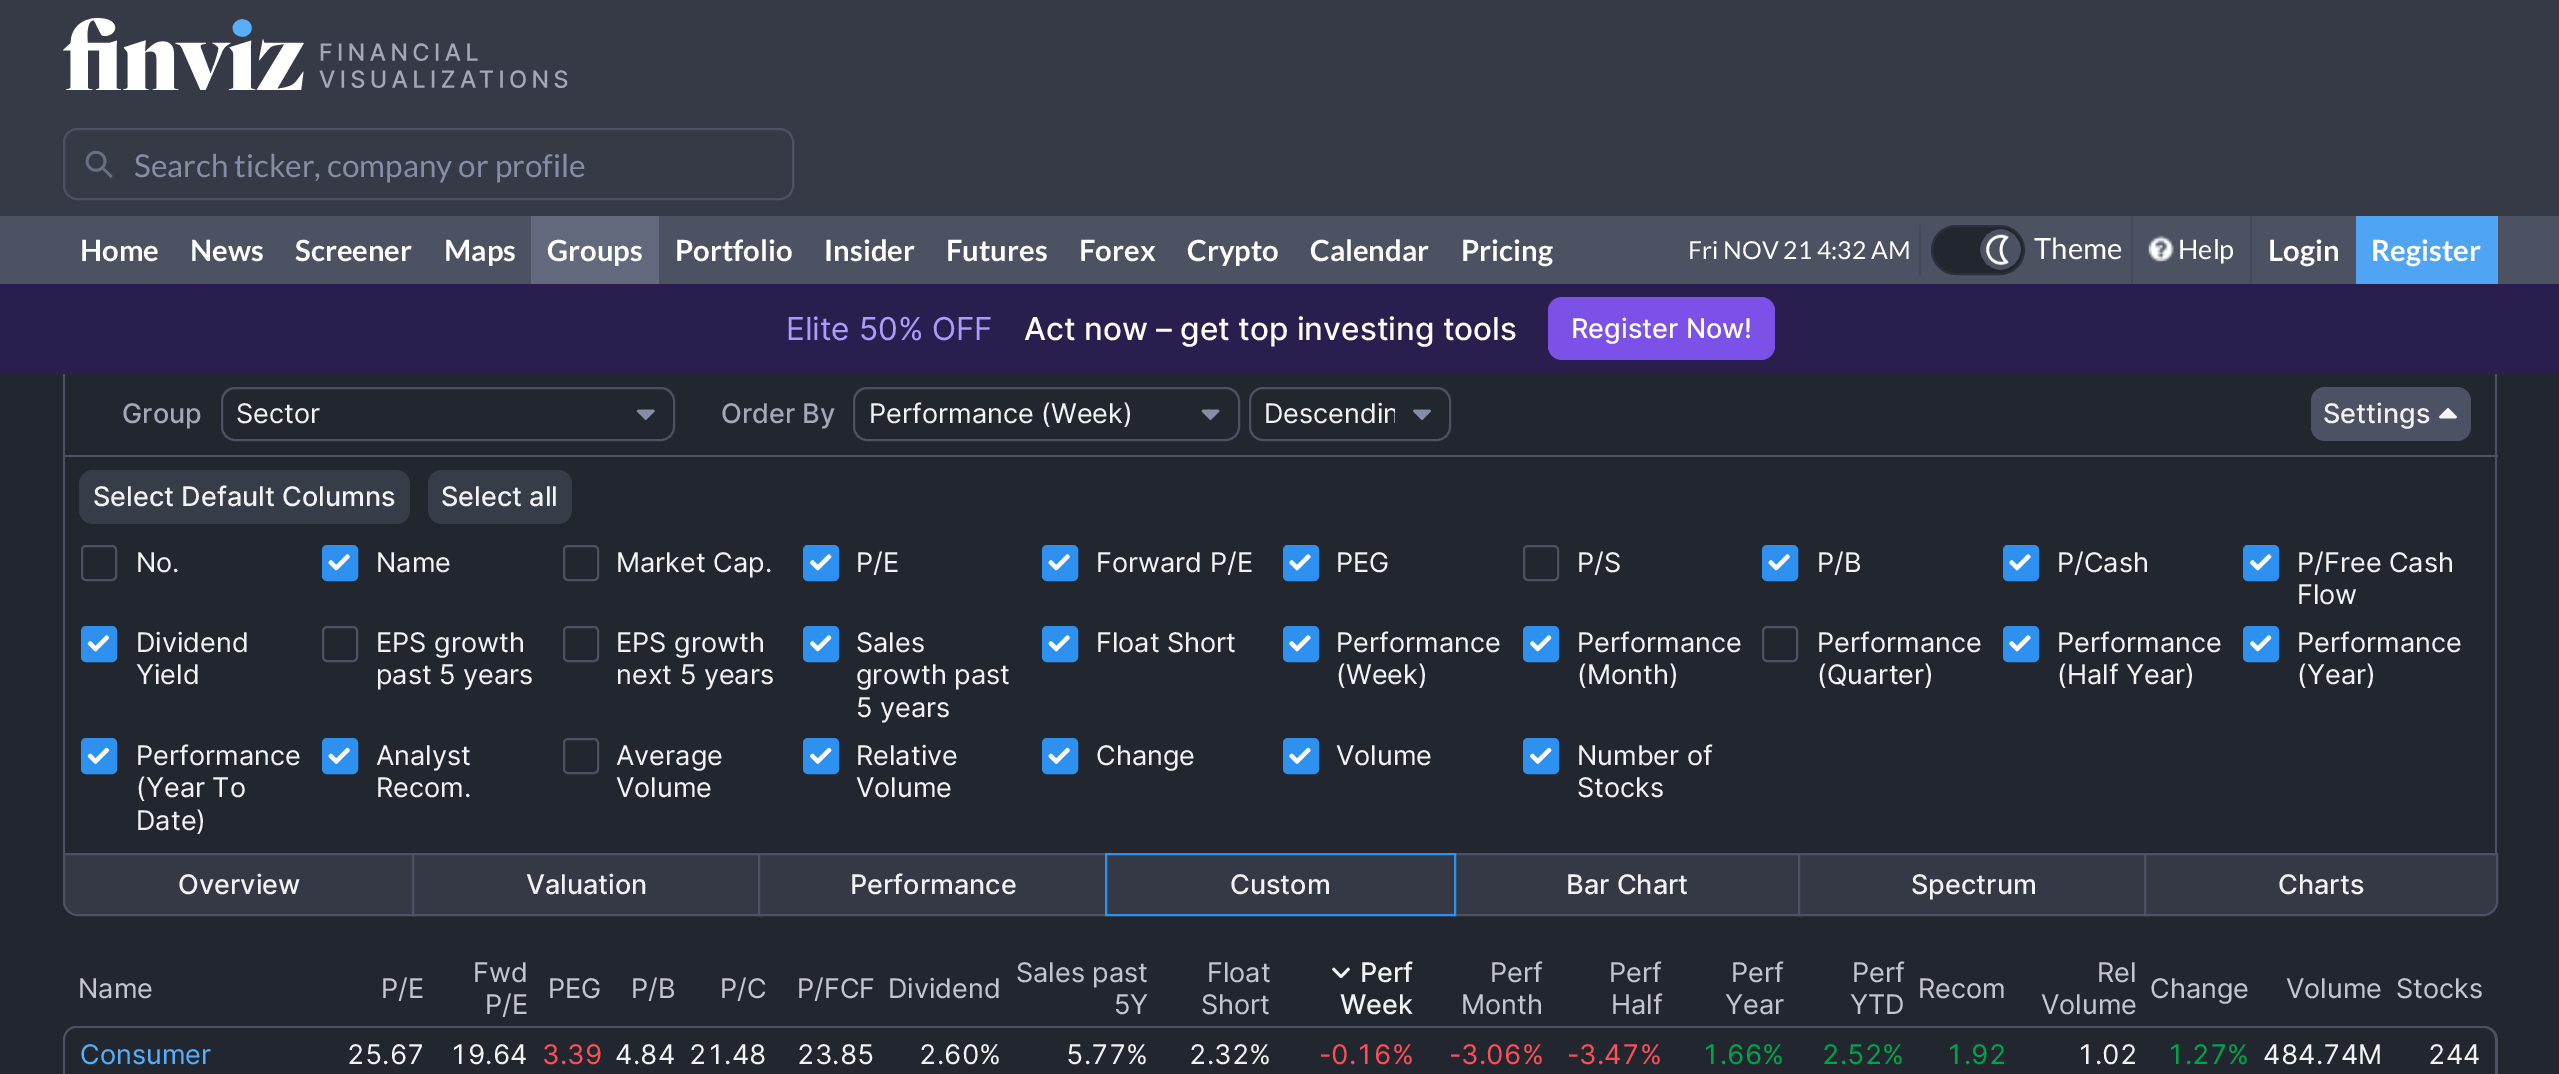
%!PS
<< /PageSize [2559 1074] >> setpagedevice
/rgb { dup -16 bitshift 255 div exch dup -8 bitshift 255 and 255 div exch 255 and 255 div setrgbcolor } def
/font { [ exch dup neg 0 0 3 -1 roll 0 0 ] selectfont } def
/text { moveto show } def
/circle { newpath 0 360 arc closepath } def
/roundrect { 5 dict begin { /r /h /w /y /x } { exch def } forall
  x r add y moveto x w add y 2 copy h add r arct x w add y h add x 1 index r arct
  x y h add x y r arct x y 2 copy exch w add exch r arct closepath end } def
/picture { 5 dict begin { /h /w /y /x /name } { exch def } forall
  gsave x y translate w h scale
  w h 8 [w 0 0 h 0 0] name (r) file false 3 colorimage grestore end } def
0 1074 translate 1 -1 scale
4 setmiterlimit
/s1 { /Lato-Regular 31.5 font 16#868EA5 rgb } def
/s2 { /Lato-Bold 29.25 font 16#FFFFFF rgb } def
/s3 { /Lato-Regular 24.75 font 16#FFFFFF rgb } def
/s4 { /Lato-Regular 29.25 font 16#FFFFFF rgb } def
/s5 { /Lato-Regular 27 font 16#FFFFFF rgb } def
/s6 { /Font-Regular 31.5 font 16#AD9BFB rgb } def
/s7 { /Font-Medium 31.5 font 16#FFFFFF rgb } def
/s8 { /Font-Medium 27 font 16#FFFFFF rgb } def
/s9 { /Font-Medium 27 font 16#A3A8B9 rgb } def
/s10 { /Font-Regular 27 font 16#F3F3F5 rgb } def
/s11 { /Font-Medium 27 font 16#F3F3F5 rgb } def
/s12 { /Font-Regular 27 font 16#C3C6D0 rgb } def
/s13 { /Font-Regular 27 font 16#57AEFB rgb } def
/s14 { /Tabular-Regular 27 font 16#F3F3F5 rgb } def
/s15 { /Tabular-Regular 27 font 16#FB5057 rgb } def
/s16 { /Tabular-Regular 27 font 16#00A449 rgb } def
16#22262F rgb
0 0 2559 1074 rectfill
16#363A46 rgb
0 0 2559 216 rectfill
(pic1.raw) 63 18 505 72 picture
16#4C5263 rgb
2 setlinewidth
64 129 729 70 13 roundrect stroke
(pic2.raw) 85 150 28 28 picture
s1
(Search ticker, company or profile) 134 177 text
16#4C5261 rgb
0 216 2559 68 rectfill
s2
(Home) 80 261 text
(News) 190 261 text
(Screener) 295 261 text
(Maps) 444 261 text
16#62697D rgb
531 216 128 68 rectfill
s2
(Groups) 547 261 text
(Portfolio) 675 261 text
(Insider) 824 261 text
(Futures) 946 261 text
(Forex) 1079 261 text
(Crypto) 1187 261 text
(Calendar) 1310 261 text
(Pricing) 1461 261 text
s3
(Fri NOV 21 4:32 AM) 1688 259 text
16#444A57 rgb
1919 225 2 50 rectfill
16#22262F rgb
1932 226 92 48 24 roundrect gsave fill grestore
16#2C303B rgb
stroke
16#4C5261 rgb
2000.5 249.5 21.5 circle gsave fill grestore
16#22262F rgb
stroke
(pic3.raw) 1986 234 23 31 picture
s4
(Theme) 2034 259 text
16#444A57 rgb
2131 216 2 68 rectfill
(pic4.raw) 2148 235 26 27 picture
s5
(Help) 2178 259 text
16#444A57 rgb
2250 216 2 68 rectfill
s2
(Login) 2268 261 text
16#4FA4F4 rgb
2356 216 142 68 rectfill
s2
(Register) 2371 261 text
16#2A1E4E rgb
0 284 2559 90 rectfill
s6
(Elite 50% OFF) 786 340 text
s7
(Act now – get top investing tools) 1024 340 text
16#7C51E7 rgb
1548 297 227 63 14 roundrect fill
s8
(Register Now!) 1571 338 text
16#4C5263 rgb
2495 374 2 81 rectfill
63 374 2 81 rectfill
s9
(Group) 122 423 text
(pic5.raw) 636 409 19 11 picture
16#4C5263 rgb
222 388 452 52 13 roundrect stroke
s10
(Sector) 236 423 text
s9
(Order By) 721 423 text
(pic6.raw) 1201 409 19 11 picture
16#4C5263 rgb
854 388 385 52 13 roundrect stroke
s10
(Performance \(Week\)) 869 423 text
(pic7.raw) 1413 409 18 11 picture
16#4C5263 rgb
1250 388 200 52 13 roundrect stroke
gsave
1265 392 130 45 rectclip
s10
(Descendin) 1264 423 text
grestore
2311 387 160 54 14 roundrect fill
s11
(Settings) 2323 423 text
(pic8.raw) 2439 408 18 11 picture
16#4C5263 rgb
63 455 2435 2 rectfill
2495 455 2 398 rectfill
63 455 2 398 rectfill
16#373C49 rgb
79 470 331 54 14 roundrect fill
s11
(Select Default Columns) 93 506 text
16#373C49 rgb
428 470 144 54 14 roundrect fill
s11
(Select all) 441 506 text
16#4C5263 rgb
82 546 34 34 4 roundrect stroke
s10
(No.) 136 572 text
16#2F91EF rgb
323 546 34 34 4 roundrect gsave fill grestore
stroke
(pic9.raw) 328 554 22 17 picture
s10
(Name) 376 572 text
16#4C5263 rgb
564 546 34 34 4 roundrect stroke
s10
(Market Cap.) 616 572 text
16#2F91EF rgb
804 546 34 34 4 roundrect gsave fill grestore
stroke
(pic10.raw) 810 554 22 17 picture
s10
(P/E) 856 572 text
16#2F91EF rgb
1043 546 34 34 4 roundrect gsave fill grestore
stroke
(pic9.raw) 1048 554 22 17 picture
s10
(Forward P/E) 1096 572 text
16#2F91EF rgb
1284 546 34 34 4 roundrect gsave fill grestore
stroke
(pic11.raw) 1289 554 22 17 picture
s10
(PEG) 1336 572 text
16#4C5263 rgb
1524 546 34 34 4 roundrect stroke
s10
(P/S) 1577 572 text
16#2F91EF rgb
1763 546 34 34 4 roundrect gsave fill grestore
stroke
(pic9.raw) 1768 554 22 17 picture
s10
(P/B) 1817 572 text
16#2F91EF rgb
2004 546 34 34 4 roundrect gsave fill grestore
stroke
(pic11.raw) 2009 554 22 17 picture
s10
(P/Cash) 2057 572 text
16#2F91EF rgb
2244 546 34 34 4 roundrect gsave fill grestore
stroke
(pic10.raw) 2250 554 22 17 picture
s10
(P/Free Cash) 2297 572 text
(Flow) 2297 604 text
16#2F91EF rgb
82 627 34 34 4 roundrect gsave fill grestore
stroke
(pic12.raw) 87 635 23 17 picture
s10
(Dividend) 136 652 text
(Yield) 136 684 text
16#4C5263 rgb
323 627 34 34 4 roundrect stroke
s10
(EPS growth) 376 652 text
(past 5 years) 376 684 text
16#4C5263 rgb
564 627 34 34 4 roundrect stroke
s10
(EPS growth) 616 652 text
(next 5 years) 616 684 text
16#2F91EF rgb
804 627 34 34 4 roundrect gsave fill grestore
stroke
(pic10.raw) 810 635 22 17 picture
s10
(Sales) 856 652 text
(growth past) 856 684 text
(5 years) 856 717 text
16#2F91EF rgb
1043 627 34 34 4 roundrect gsave fill grestore
stroke
(pic9.raw) 1048 635 22 17 picture
s10
(Float Short) 1096 652 text
16#2F91EF rgb
1284 627 34 34 4 roundrect gsave fill grestore
stroke
(pic11.raw) 1289 635 22 17 picture
s10
(Performance) 1336 652 text
(\(Week\)) 1336 684 text
16#2F91EF rgb
1524 627 34 34 4 roundrect gsave fill grestore
stroke
(pic10.raw) 1530 635 22 17 picture
s10
(Performance) 1577 652 text
(\(Month\)) 1577 684 text
16#4C5263 rgb
1763 627 34 34 4 roundrect stroke
s10
(Performance) 1817 652 text
(\(Quarter\)) 1817 684 text
16#2F91EF rgb
2004 627 34 34 4 roundrect gsave fill grestore
stroke
(pic11.raw) 2009 635 22 17 picture
s10
(Performance) 2057 652 text
(\(Half Year\)) 2057 684 text
16#2F91EF rgb
2244 627 34 34 4 roundrect gsave fill grestore
stroke
(pic10.raw) 2250 635 22 17 picture
s10
(Performance) 2297 652 text
(\(Year\)) 2297 684 text
16#2F91EF rgb
82 739 34 34 4 roundrect gsave fill grestore
stroke
(pic13.raw) 87 747 23 17 picture
s10
(Performance) 136 765 text
(\(Year To) 136 797 text
(Date\)) 136 830 text
16#2F91EF rgb
323 739 34 34 4 roundrect gsave fill grestore
stroke
(pic14.raw) 328 747 22 17 picture
s10
(Analyst) 376 765 text
(Recom.) 376 797 text
16#4C5263 rgb
564 739 34 34 4 roundrect stroke
s10
(Average) 616 765 text
(Volume) 616 797 text
16#2F91EF rgb
804 739 34 34 4 roundrect gsave fill grestore
stroke
(pic15.raw) 810 747 22 17 picture
s10
(Relative) 856 765 text
(Volume) 856 797 text
16#2F91EF rgb
1043 739 34 34 4 roundrect gsave fill grestore
stroke
(pic14.raw) 1048 747 22 17 picture
s10
(Change) 1096 765 text
16#2F91EF rgb
1284 739 34 34 4 roundrect gsave fill grestore
stroke
(pic16.raw) 1289 747 22 17 picture
s10
(Volume) 1336 765 text
16#2F91EF rgb
1524 739 34 34 4 roundrect gsave fill grestore
stroke
(pic15.raw) 1530 747 22 17 picture
s10
(Number of) 1577 765 text
(Stocks) 1577 797 text
16#353945 rgb
64 854 moveto 415 854 lineto 415 915 lineto 77 915 lineto 70 915 64 909 64 902 curveto closepath gsave fill grestore
16#4C5263 rgb
stroke
s11
(Overview) 178 894 text
16#353945 rgb
414 855 344 59 rectfill
16#4C5263 rgb
413 854 349 61 rectstroke
s11
(Valuation) 526 894 text
16#353945 rgb
760 855 345 59 rectfill
16#4C5263 rgb
759 854 349 61 rectstroke
s11
(Performance) 850 894 text
16#353945 rgb
1456 855 342 59 rectfill
16#4C5263 rgb
1452 854 349 61 rectstroke
16#353945 rgb
1106 854 moveto 1455 854 lineto 1455 915 lineto 1106 915 lineto closepath gsave fill grestore
16#2F91EF rgb
stroke
s11
(Custom) 1230 894 text
(Bar Chart) 1566 894 text
16#353945 rgb
1800 855 344 59 rectfill
16#4C5263 rgb
1799 854 349 61 rectstroke
s11
(Spectrum) 1911 894 text
16#353945 rgb
2145 854 moveto 2497 854 lineto 2497 902 lineto 2497 909 2491 915 2484 915 curveto 2145 915 lineto closepath gsave fill grestore
16#4C5263 rgb
stroke
s11
(Charts) 2278 894 text
s12
(Name) 78 998 text
(P/E) 381 998 text
(Fwd) 473 982 text
(P/E) 485 1014 text
(PEG) 548 998 text
(P/B) 631 998 text
(P/C) 720 998 text
(P/FCF) 797 998 text
(Dividend) 888 998 text
(Sales past) 1016 982 text
(5Y) 1114 1014 text
(Float) 1207 982 text
(Short) 1201 1014 text
(pic17.raw) 1332 967 18 11 picture
s11
(Perf) 1360 982 text
(Week) 1340 1014 text
s12
(Perf) 1490 982 text
(Month) 1461 1014 text
(Perf) 1609 982 text
(Half) 1611 1014 text
(Perf) 1731 982 text
(Year) 1725 1014 text
(Perf) 1852 982 text
(YTD) 1850 1014 text
(Recom) 1918 998 text
(Rel) 2097 982 text
(Volume) 2041 1014 text
(Change) 2150 998 text
(Volume) 2286 998 text
(Stocks) 2396 998 text
16#4C5263 rgb
76 1026 moveto 340 1026 lineto 340 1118 lineto 63 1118 lineto 63 1040 lineto 63 1032 69 1026 76 1026 curveto closepath 76 1028 moveto 340 1028 lineto 340 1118 lineto 65 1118 lineto 65 1040 lineto 65 1033 70 1028 76 1028 curveto closepath eofill
s13
(Consumer) 80 1064 text
16#4C5263 rgb
340 1026 2050 2 rectfill
s14
(25.67) 347 1064 text
(19.64) 450 1064 text
s15
(3.39) 542 1064 text
s14
(4.84) 615 1064 text
(21.48) 689 1064 text
(23.85) 797 1064 text
(2.60%) 919 1064 text
(5.77%) 1066 1064 text
(2.32%) 1189 1064 text
s15
(-0.16%) 1319 1064 text
(-3.06%) 1449 1064 text
(-3.47%) 1567 1064 text
s16
(1.66%) 1702 1064 text
(2.52%) 1822 1064 text
(1.92) 1946 1064 text
s14
(1.02) 2077 1064 text
s16
(1.27%) 2167 1064 text
s14
(484.74M) 2263 1064 text
16#4C5263 rgb
2390 1026 moveto 2484 1026 lineto 2491 1026 2498 1032 2498 1040 curveto 2498 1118 lineto 2390 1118 lineto closepath 2390 1028 moveto 2484 1028 lineto 2490 1028 2495 1033 2495 1040 curveto 2495 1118 lineto 2390 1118 lineto closepath eofill
s14
(244) 2428 1064 text
showpage
